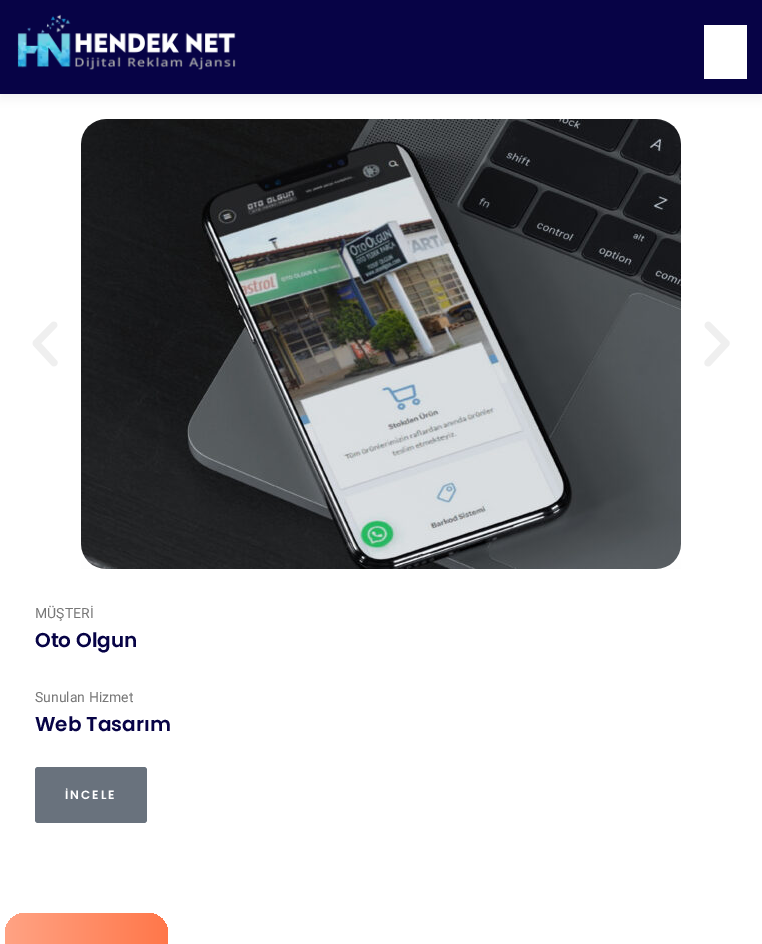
%!PS
<< /PageSize [762 944] /PageUsesTransparency true >> setpagedevice
/rgb { dup -16 bitshift 255 div exch dup -8 bitshift 255 and 255 div exch 255 and 255 div setrgbcolor } def
/font { [ exch dup neg 0 0 3 -1 roll 0 0 ] selectfont } def
/text { moveto show } def
/alpha { dup .setfillconstantalpha .setstrokeconstantalpha } def
/roundrect { 5 dict begin { /r /h /w /y /x } { exch def } forall
  x r add y moveto x w add y 2 copy h add r arct x w add y h add x 1 index r arct
  x y h add x y r arct x y 2 copy exch w add exch r arct closepath end } def
/shadow { 12 dict begin { /a /b /q /h /w /y /x } { exch def } forall gsave /was 0 def
  9 -2 -9 { dup b mul 4 div /e exch def 1 sub .425 mul 2.718 exch exp 1 add a .99 .min exch div /now exch def
    1 1 now sub 1 was sub div sub alpha /was now def
    w h .min e 2 mul add 0 gt { x e sub y e sub w e 2 mul add h e 2 mul add
      q e add b .6 mul add w h .min 2 div e add .min 0 .max roundrect fill } if } for grestore end } def
/picture { 5 dict begin { /h /w /y /x /name } { exch def } forall
  gsave x y translate w h scale
  w h 8 [w 0 0 h 0 0] name (r) file false 3 colorimage grestore end } def
0 .pushpdf14devicefilter
0 944 translate 1 -1 scale
4 setmiterlimit
/s1 { /Roboto-Regular 14 font 16#777777 rgb } def
/s2 { /Poppins-SemiBold 20 font 16#070346 rgb } def
16#FFFFFF rgb
0 0 762 944 rectfill
16#000000 rgb
0 5 762 94 0 5 0.05 shadow
16#070346 rgb
0 0 762 94 rectfill
(pic1.raw) 17 14 219 56 picture
16#FFFFFF rgb
704 25 43 54 rectfill
(pic2.raw) 32 321 26 46 picture
(pic3.raw) 81 119 600 450 picture
(pic4.raw) 704 321 26 46 picture
s1
(MÜŞTERİ) 35 618 text
s2
(Oto Olgun) 35 647 text
s1
(Sunulan Hizmet) 35 702 text
s2
(Web Tasarım) 35 731 text
16#69727D rgb
35 767 112 56 3 roundrect fill
/Poppins-SemiBold 12 font
16#FFFFFF rgb
65 799 moveto 2 0 (İNCELE) ashow
gsave 5 913 163 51 20 roundrect clip newpath
<< /ShadingType 2 /ColorSpace /DeviceRGB /Coords [5 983 168 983] /Extend [true true] /Function << /FunctionType 2 /Domain [0 1] /C0 [1 0.639 0.518] /C1 [1 0.467 0.29] /N 1 >> >> shfill grestore
.poppdf14devicefilter showpage
